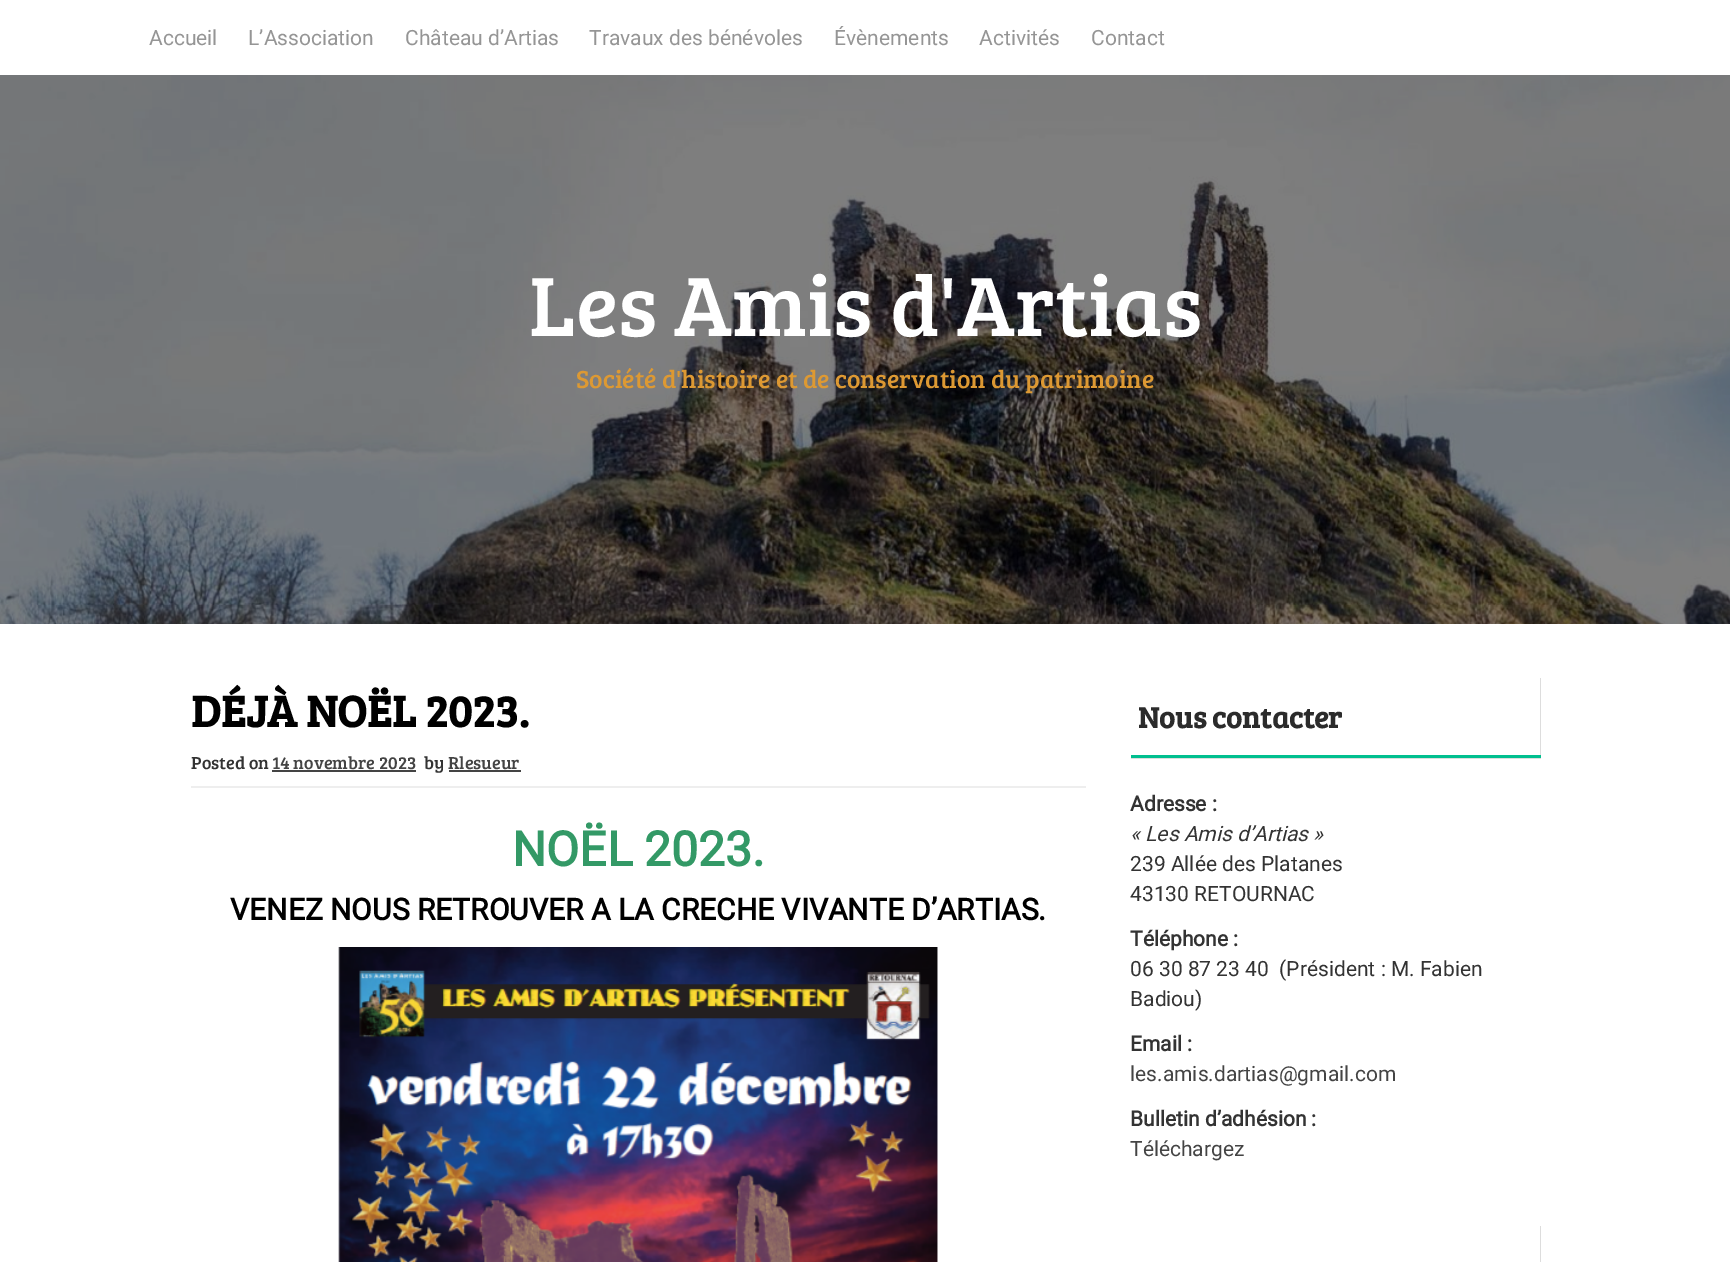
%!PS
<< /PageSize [1730 1262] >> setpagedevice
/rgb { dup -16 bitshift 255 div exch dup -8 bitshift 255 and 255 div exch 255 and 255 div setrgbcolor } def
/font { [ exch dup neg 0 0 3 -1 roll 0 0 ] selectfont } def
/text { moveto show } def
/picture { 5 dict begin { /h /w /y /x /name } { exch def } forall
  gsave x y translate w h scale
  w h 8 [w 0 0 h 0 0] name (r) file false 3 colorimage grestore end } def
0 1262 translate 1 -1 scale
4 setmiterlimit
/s1 { /Roboto-Regular 21 font 16#959595 rgb } def
/s2 { /BreeSerif-Regular 87 font 16#FFFFFF rgb } def
/s3 { /BreeSerif-Regular 25.5 font 16#DD9933 rgb } def
/s4 { /BreeSerif-Bold 45 font 16#000000 rgb } def
/s5 { /BreeSerif-Regular 18 font 16#333333 rgb } def
/s6 { /BreeSerif-Regular 18 font 16#444444 rgb } def
/s7 { /Roboto-Bold 48 font 16#339966 rgb } def
/s8 { /Roboto-Bold 30 font 16#000000 rgb } def
/s9 { /BreeSerif-Bold 30 font 16#2B2B2B rgb } def
/s10 { /Roboto-Bold 21 font 16#333333 rgb } def
/s11 { /Roboto-Italic 21 font 16#333333 rgb } def
/s12 { /Roboto-Regular 21 font 16#333333 rgb } def
/s13 { /Roboto-Regular 21 font 16#444444 rgb } def
16#FFFFFF rgb
0 0 1730 1262 rectfill
s1
(Accueil) 149 45 text
(L’Association) 248 45 text
(Château d’Artias) 405 45 text
(Travaux des bénévoles) 589 45 text
(Évènements) 834 45 text
(Activités) 979 45 text
(Contact) 1091 45 text
(pic1.raw) 0 75 1730 549 picture
s2
(Les Amis d'Artias) 529 336 text
s3
(Société d'histoire et de conservation du patrimoine) 576 388 text
s4
(DÉJÀ NOËL 2023.) 191 727 text
16#EEEEEE rgb
191 786 895 2 rectfill
s5
(Posted on) 191 769 text
s6
(14 novembre 2023) 272 769 text
272 770 144 2 rectfill
s5
(by) 424 769 text
s6
(Rlesueur) 448 769 text
449 770 72 2 rectfill
s7
(NOËL 2023.) 512 866 text
s8
(VENEZ NOUS RETROUVER A LA CRECHE VIVANTE D’ARTIAS.) 230 920 text
(pic2.raw) 338 947 600 315 picture
16#DDDDDD rgb
1131 758 moveto 1131 759 lineto 1541 759 lineto 1541 678 lineto 1540 678 lineto 1540 758 lineto closepath fill
16#00BF8F rgb
1131 755 410 3 rectfill
s9
(Nous contacter) 1138 728 text
s10
(Adresse :) 1130 811 text
s11
(« Les Amis d’Artias ») 1130 841 text
s12
(239 Allée des Platanes) 1130 871 text
(43130 RETOURNAC) 1130 901 text
s10
(Téléphone :) 1130 946 text
s12
(06 30 87 23 40  \(Président : M. Fabien) 1130 976 text
(Badiou\)) 1130 1006 text
s10
(Email :) 1130 1051 text
s13
(les.amis.dartias@gmail.com) 1130 1081 text
s10
(Bulletin d’adhésion :) 1130 1126 text
s13
(Téléchargez) 1130 1156 text
16#DDDDDD rgb
1131 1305 moveto 1131 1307 lineto 1541 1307 lineto 1541 1226 lineto 1540 1226 lineto 1540 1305 lineto closepath fill
showpage
